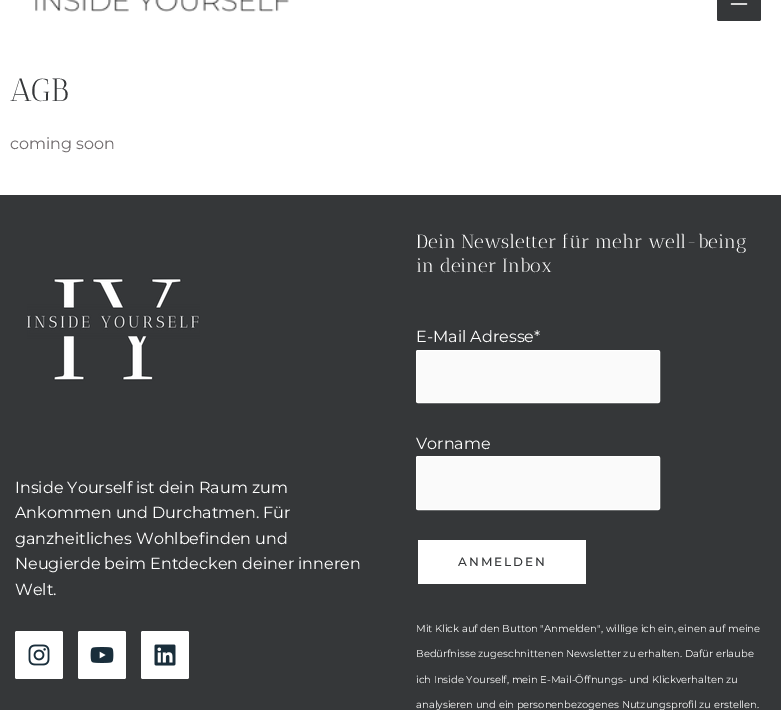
%!PS
<< /PageSize [781 710] >> setpagedevice
/rgb { dup -16 bitshift 255 div exch dup -8 bitshift 255 and 255 div exch 255 and 255 div setrgbcolor } def
/font { [ exch dup neg 0 0 3 -1 roll 0 0 ] selectfont } def
/text { moveto show } def
/roundrect { 5 dict begin { /r /h /w /y /x } { exch def } forall
  x r add y moveto x w add y 2 copy h add r arct x w add y h add x 1 index r arct
  x y h add x y r arct x y 2 copy exch w add exch r arct closepath end } def
/picture { 5 dict begin { /h /w /y /x /name } { exch def } forall
  gsave x y translate w h scale
  w h 8 [w 0 0 h 0 0] name (r) file false 3 colorimage grestore end } def
0 710 translate 1 -1 scale
4 setmiterlimit
/s1 { /AnticDidone-Regular 32 font 16#353739 rgb } def
/s2 { /Montserrat-Regular 16 font 16#706B6D rgb } def
/s3 { /Montserrat-Regular 16 font 16#FFFFFF rgb } def
/s4 { /AnticDidone-Regular 19 font 16#FFFFFF rgb } def
/s5 { /Montserrat-Regular 10 font 16#FFFFFF rgb } def
16#FFFFFF rgb
0 0 781 710 rectfill
(pic1.raw) 35 0 254 12 picture
16#353739 rgb
717 -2 44 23 2 roundrect fill
(pic2.raw) 730 3 18 2 picture
s1
(AGB) 10 101 text
s2
(coming soon) 10 149 text
16#353739 rgb
0 195 781 515 rectfill
(pic3.raw) 27 278 173 103 picture
s3
(Inside Yourself ist dein Raum zum) 15 493 text
(Ankommen und Durchatmen. Für) 15 518 text
(ganzheitliches Wohlbefinden und) 15 544 text
(Neugierde beim Entdecken deiner inneren) 15 569 text
(Welt.) 15 595 text
15 631 48 48 2 roundrect fill
(pic4.raw) 28 644 22 22 picture
78 631 48 48 2 roundrect fill
(pic5.raw) 90 647 24 16 picture
141 631 48 48 2 roundrect fill
(pic6.raw) 154 644 22 22 picture
s4
(Dein Newsletter für mehr well-being) 416 248 text
(in deiner Inbox) 416 272 text
s3
(E-Mail Adresse*) 416 342 text
16#FAFAFA rgb
416.5 350.5 243 52 1.5 roundrect gsave fill grestore
16#FFFFFF rgb
stroke
(Vorname) 416 449 text
16#FAFAFA rgb
416.5 456.5 243 53 1.5 roundrect gsave fill grestore
16#FFFFFF rgb
stroke
418 540 168 44 rectfill
/Montserrat-Medium 12 font
16#353739 rgb
458 566 moveto 2 0 (ANMELDEN) ashow
s5
(Mit Klick auf den Button "Anmelden", willige ich ein, einen auf meine) 416 632 text
(Bedürfnisse zugeschnittenen Newsletter zu erhalten. Dafür erlaube) 416 657 text
(ich Inside Yourself, mein E-Mail-Öffnungs- und Klickverhalten zu) 416 683 text
(analysieren und ein personenbezogenes Nutzungsprofil zu erstellen.) 416 708 text
showpage
